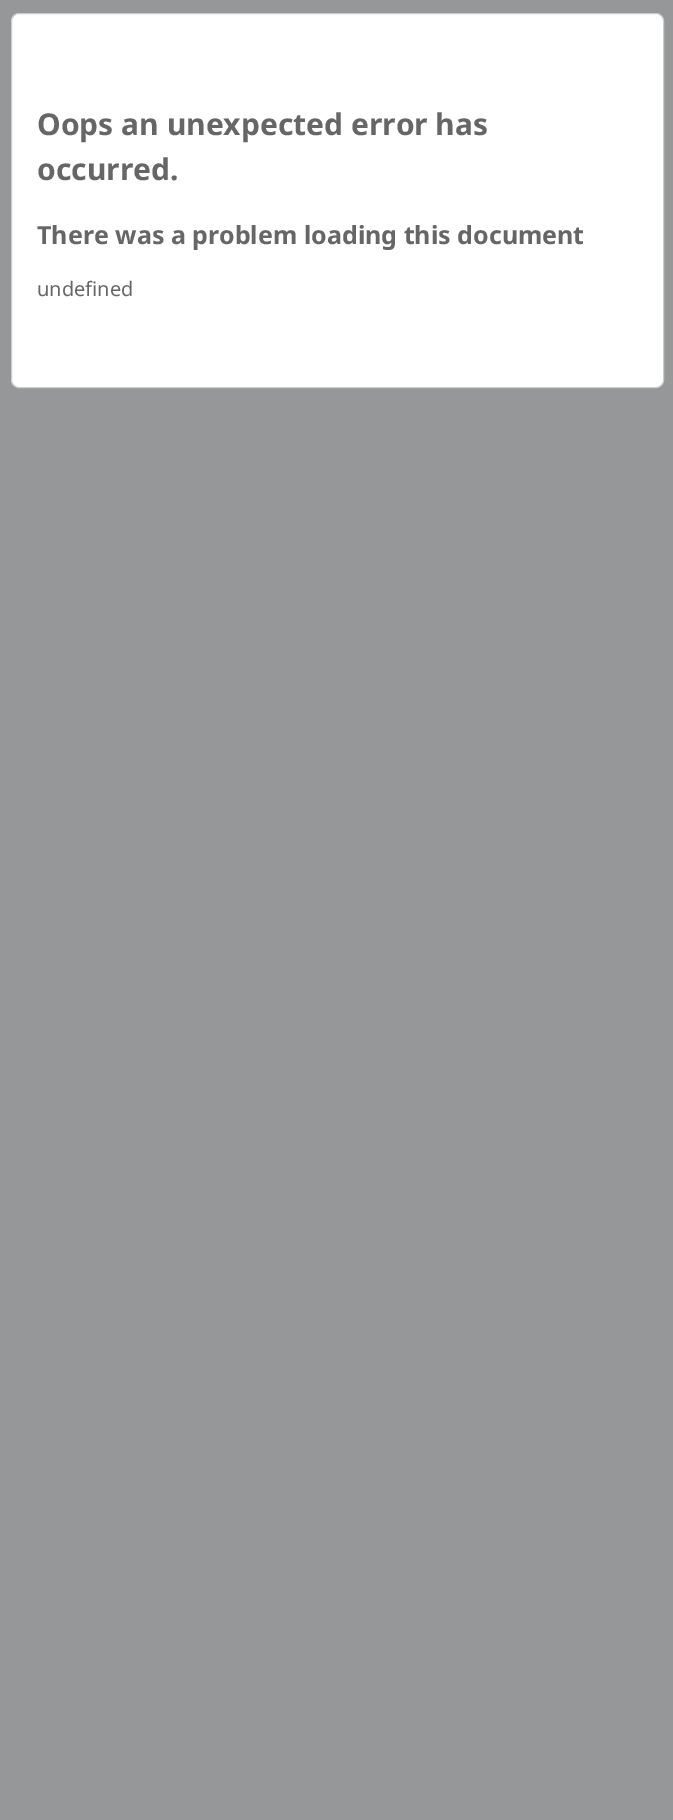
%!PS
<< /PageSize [673 1820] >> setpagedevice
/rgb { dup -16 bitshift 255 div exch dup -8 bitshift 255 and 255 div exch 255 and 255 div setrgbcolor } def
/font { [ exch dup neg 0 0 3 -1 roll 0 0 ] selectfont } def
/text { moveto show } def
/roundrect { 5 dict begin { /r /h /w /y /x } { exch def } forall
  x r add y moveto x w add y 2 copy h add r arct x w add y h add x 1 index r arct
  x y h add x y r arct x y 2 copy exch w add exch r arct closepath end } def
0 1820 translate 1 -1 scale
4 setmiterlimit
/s1 { /NotoSans-Bold 30 font 16#666666 rgb } def
/s2 { /NotoSans-Bold 25 font 16#666666 rgb } def
/s3 { /NotoSans-Regular 20 font 16#666666 rgb } def
16#969798 rgb
0 0 673 1820 rectfill
16#FFFFFF rgb
11.5 13.5 652 374 7.5 roundrect gsave fill grestore
16#CCCCCC rgb
stroke
s1
(Oops an unexpected error has) 37 135 text
(occurred.) 37 180 text
s2
(There was a problem loading this document) 37 244 text
s3
(undefined) 37 296 text
showpage
